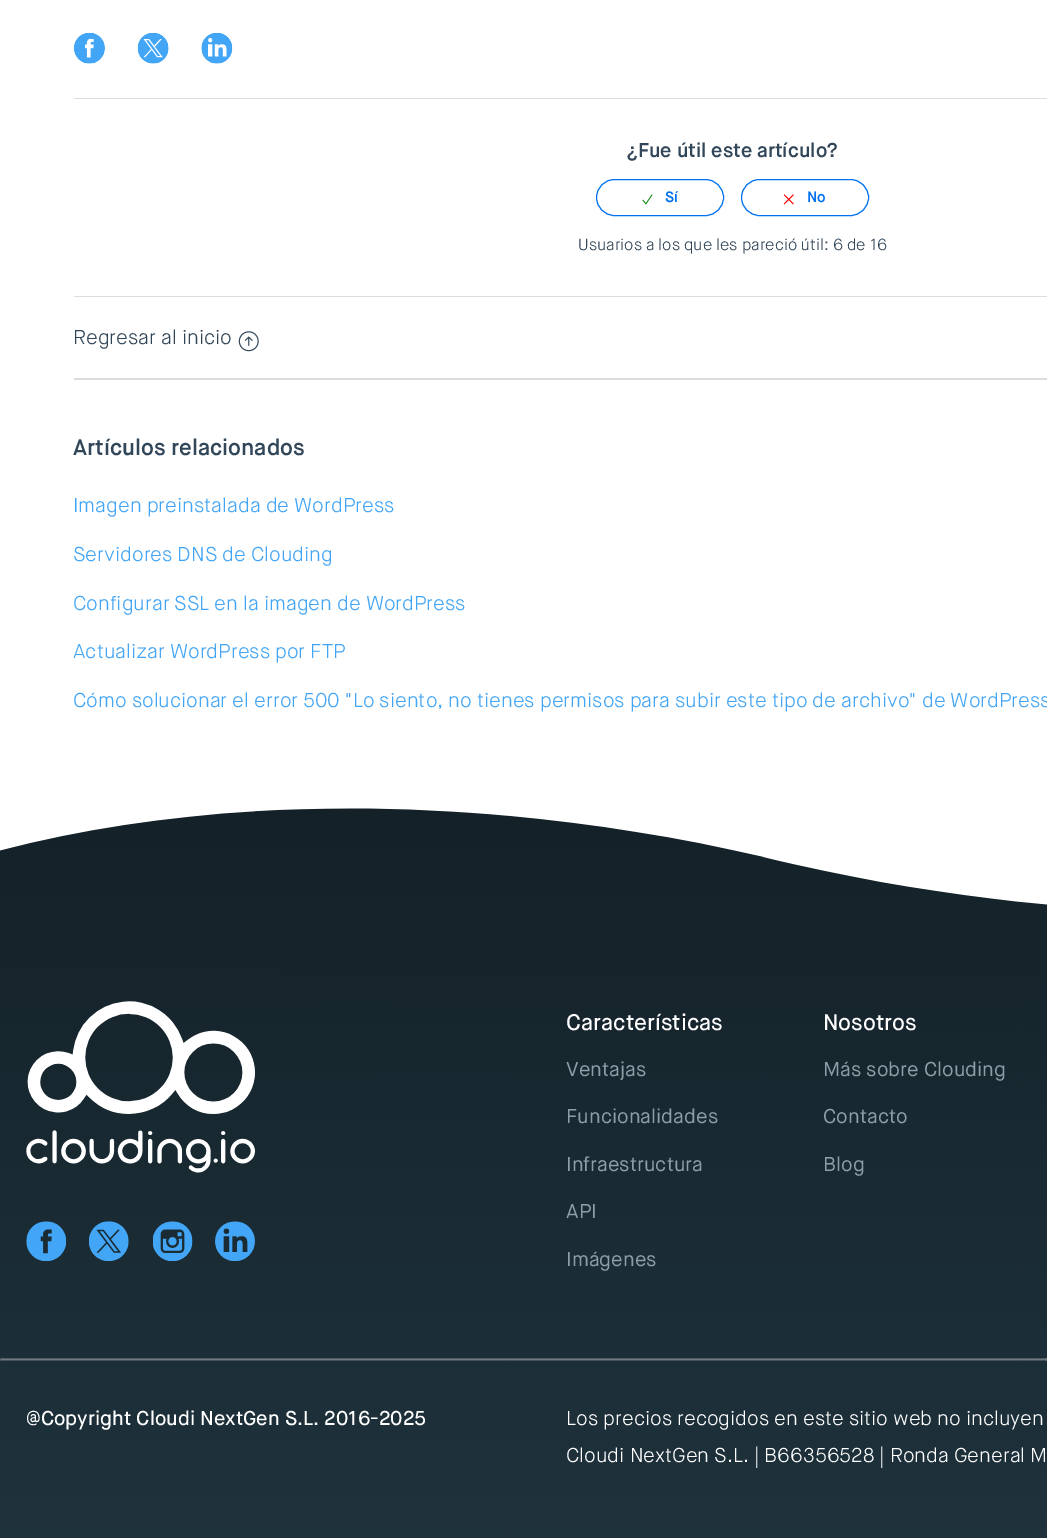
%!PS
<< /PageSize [1047 1538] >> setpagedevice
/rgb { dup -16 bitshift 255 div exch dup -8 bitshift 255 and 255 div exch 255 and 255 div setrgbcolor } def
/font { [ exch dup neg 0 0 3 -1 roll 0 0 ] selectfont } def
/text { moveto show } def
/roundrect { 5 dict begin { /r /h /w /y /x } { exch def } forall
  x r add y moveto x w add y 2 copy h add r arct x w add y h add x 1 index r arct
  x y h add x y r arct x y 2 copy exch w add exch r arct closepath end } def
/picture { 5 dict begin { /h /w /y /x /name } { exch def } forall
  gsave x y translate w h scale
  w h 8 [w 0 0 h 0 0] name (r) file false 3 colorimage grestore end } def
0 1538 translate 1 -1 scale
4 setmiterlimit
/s1 { /MaisonNeue-SemiBold 20 font 16#324659 rgb } def
/s2 { /MaisonNeue-SemiBold 15 font 16#0072EF rgb } def
/s3 { /MaisonNeue-Light 16 font 16#324659 rgb } def
/s4 { /MaisonNeue-Light 20 font 16#324659 rgb } def
/s5 { /MaisonNeue-SemiBold 22.5 font 16#324659 rgb } def
/s6 { /MaisonNeue-Light 20 font 16#42A5F5 rgb } def
/s7 { /MaisonNeue-Medium 22.5 font 16#FFFFFF rgb } def
/s8 { /MaisonNeue-Regular 20 font 16#8D9EA6 rgb } def
/s9 { /MaisonNeue-Medium 20 font 16#FFFFFF rgb } def
/s10 { /MaisonNeue-Light 20 font 16#FFFFFF rgb } def
16#FFFFFF rgb
0 0 1047 1538 rectfill
(pic1.raw) 74 33 31 31 picture
(pic2.raw) 138 33 31 31 picture
(pic3.raw) 201 33 32 31 picture
16#DDDDDD rgb
74 98 973 1 rectfill
s1
(¿Fue útil este artículo?) 627 157 text
16#0072EF rgb
596.5 179.5 127 36 18 roundrect stroke
(pic4.raw) 642 194 11 11 picture
s2
(Sí) 665 202 text
741.5 179.5 127 36 18 roundrect stroke
(pic5.raw) 783 194 11 11 picture
(No) 807 202 text
s3
(Usuarios a los que les pareció útil: 6 de 16) 578 250 text
16#DDDDDD rgb
74 296 973 1 rectfill
74 378 973 2 rectfill
s4
(Regresar al inicio) 73 344 text
(pic6.raw) 238 331 21 21 picture
s5
(Artículos relacionados) 73 455 text
s6
(Imagen preinstalada de WordPress) 73 512 text
(Servidores DNS de Clouding) 73 561 text
(Configurar SSL en la imagen de WordPress) 73 610 text
(Actualizar WordPress por FTP) 73 658 text
(Cómo solucionar el error 500 "Lo siento, no tienes permisos para subir este tipo de archivo" de WordPress) 73 707 text
(pic7.raw) 0 808 1047 730 picture
(pic8.raw) 26 1001 229 172 picture
(pic9.raw) 26 1221 40 40 picture
(pic10.raw) 89 1221 40 40 picture
(pic11.raw) 153 1221 40 40 picture
(pic12.raw) 215 1221 40 40 picture
s7
(Características) 566 1030 text
s8
(Ventajas) 566 1076 text
(Funcionalidades) 566 1123 text
(Infraestructura) 566 1171 text
(API) 566 1218 text
(Imágenes) 566 1266 text
s7
(Nosotros) 823 1030 text
s8
(Más sobre Clouding) 823 1076 text
(Contacto) 823 1123 text
(Blog) 823 1171 text
16#454F55 rgb
0 1360 1047 1 rectfill
16#505B61 rgb
0 1358 1047 1 rectfill
16#707B80 rgb
1046 1358 1 3 rectfill
0 1359 1047 1 rectfill
16#505B61 rgb
0 1358 1 3 rectfill
s9
(@Copyright Cloudi NextGen S.L. 2016-2025) 26 1425 text
s10
(Los precios recogidos en este sitio web no incluyen) 566 1425 text
(Cloudi NextGen S.L. | B66356528 | Ronda General M) 566 1462 text
showpage
